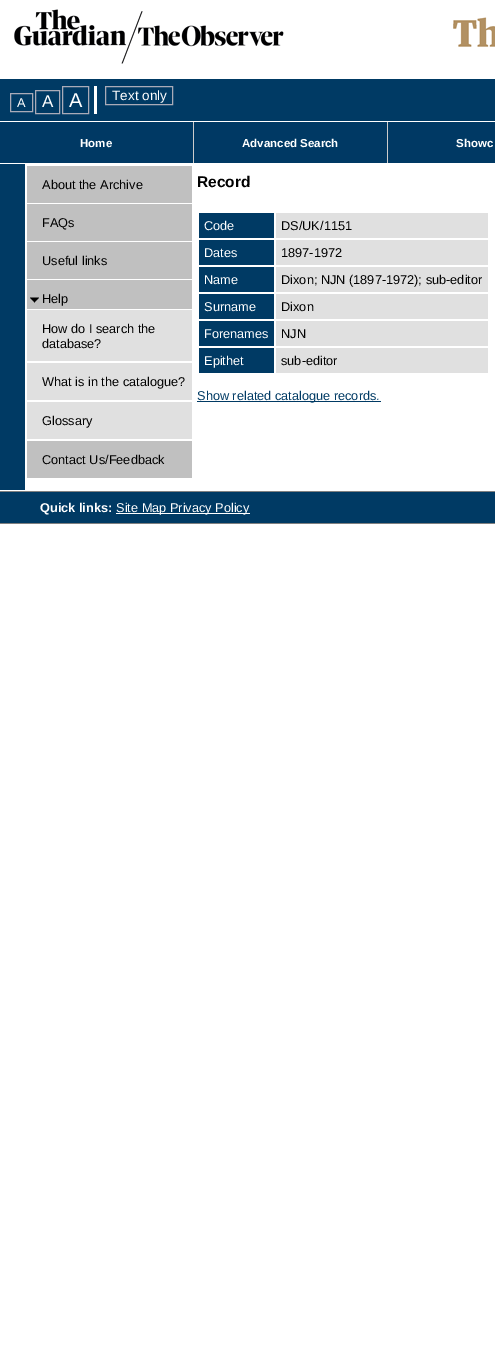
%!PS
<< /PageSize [495 1372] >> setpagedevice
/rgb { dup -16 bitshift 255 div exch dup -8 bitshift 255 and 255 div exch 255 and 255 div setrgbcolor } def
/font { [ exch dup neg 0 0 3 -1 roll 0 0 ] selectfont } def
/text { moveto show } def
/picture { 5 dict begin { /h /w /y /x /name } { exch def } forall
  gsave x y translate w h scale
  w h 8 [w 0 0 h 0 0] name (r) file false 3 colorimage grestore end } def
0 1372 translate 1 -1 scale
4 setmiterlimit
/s1 { /LiberationSans-Regular 12.75 font 16#FFFFFF rgb } def
/s2 { /LiberationSans-Regular 17 font 16#FFFFFF rgb } def
/s3 { /LiberationSans-Regular 20 font 16#FFFFFF rgb } def
/s4 { /LiberationSans-Regular 13.5 font 16#FFFFFF rgb } def
/s5 { /LiberationSans-Bold 11.5 font 16#FFFFFF rgb } def
/s6 { /LiberationSans-Regular 12.75 font 16#000000 rgb } def
/s7 { /LiberationSans-Bold 15.5 font 16#000000 rgb } def
/s8 { /LiberationSans-Regular 12.75 font 16#003A64 rgb } def
/s9 { /LiberationSans-Bold 12.75 font 16#FFFFFF rgb } def
16#FFFFFF rgb
0 0 495 1372 rectfill
(pic1.raw) 14 9 481 55 picture
16#003A64 rgb
0 79 495 42 rectfill
16#FFFFFF rgb
94 86 3 28 rectfill
16#AAABB8 rgb
10.5 93.5 22 18 rectstroke
s1
(A) 17 107 text
16#AAABB8 rgb
35.5 90.5 24 23 rectstroke
s2
(A) 42 107 text
16#AAABB8 rgb
62.5 86.5 26 27 rectstroke
s3
(A) 69 107 text
16#AAABB8 rgb
105.5 86.5 67 18 rectstroke
s4
(Text only) 112 100 text
16#003964 rgb
0 122 193 41 rectfill
16#CCCCCC rgb
193 122 1 41 rectfill
s5
(Home) 80 147 text
16#003964 rgb
194 122 193 41 rectfill
16#CCCCCC rgb
387 122 1 41 rectfill
s5
(Advanced Search) 242 147 text
16#003964 rgb
388 122 107 41 rectfill
s5
(Showc) 456 147 text
16#003A64 rgb
0 164 25 326 rectfill
16#C0C0C0 rgb
27 166 165 37 rectfill
s6
(About the Archive) 42 189 text
16#C0C0C0 rgb
27 204 165 37 rectfill
s6
(FAQs) 42 227 text
16#C0C0C0 rgb
27 242 165 37 rectfill
s6
(Useful links) 42 265 text
16#C0C0C0 rgb
27 280 165 29 rectfill
(pic2.raw) 30 297 9 6 picture
s6
(Help) 42 303 text
16#E0E0E0 rgb
27 310 165 51 rectfill
s6
(How do I search the) 42 333 text
(database?) 42 348 text
16#E0E0E0 rgb
27 363 165 37 rectfill
s6
(What is in the catalogue?) 42 386 text
16#E0E0E0 rgb
27 402 165 37 rectfill
s6
(Glossary) 42 425 text
16#C0C0C0 rgb
27 441 165 37 rectfill
s6
(Contact Us/Feedback) 42 464 text
s7
(Record) 197 187 text
16#003A64 rgb
199 213 75 25 rectfill
s1
(Code) 204 230 text
16#E0E0E0 rgb
276 213 212 25 rectfill
s6
(DS/UK/1151) 281 230 text
16#003A64 rgb
199 240 75 25 rectfill
s1
(Dates) 204 257 text
16#E0E0E0 rgb
276 240 212 25 rectfill
s6
(1897-1972) 281 257 text
16#003A64 rgb
199 267 75 25 rectfill
s1
(Name) 204 284 text
16#E0E0E0 rgb
276 267 212 25 rectfill
s6
(Dixon; NJN \(1897-1972\); sub-editor) 281 284 text
16#003A64 rgb
199 294 75 25 rectfill
s1
(Surname) 204 311 text
16#E0E0E0 rgb
276 294 212 25 rectfill
s6
(Dixon) 281 311 text
16#003A64 rgb
199 321 75 25 rectfill
s1
(Forenames) 204 338 text
16#E0E0E0 rgb
276 321 212 25 rectfill
s6
(NJN) 281 338 text
16#003A64 rgb
199 348 75 25 rectfill
s1
(Epithet) 204 365 text
16#E0E0E0 rgb
276 348 212 25 rectfill
s6
(sub-editor) 281 365 text
16#003A64 rgb
197 401 184 1 rectfill
(Show related catalogue records.) 197 400 text
0 492 495 31 rectfill
16#808080 rgb
0 491 495 1 rectfill
0 523 495 1 rectfill
s9
(Quick links:) 40 512 text
116 513 134 1 rectfill
s1
(Site Map Privacy Policy) 116 512 text
showpage
